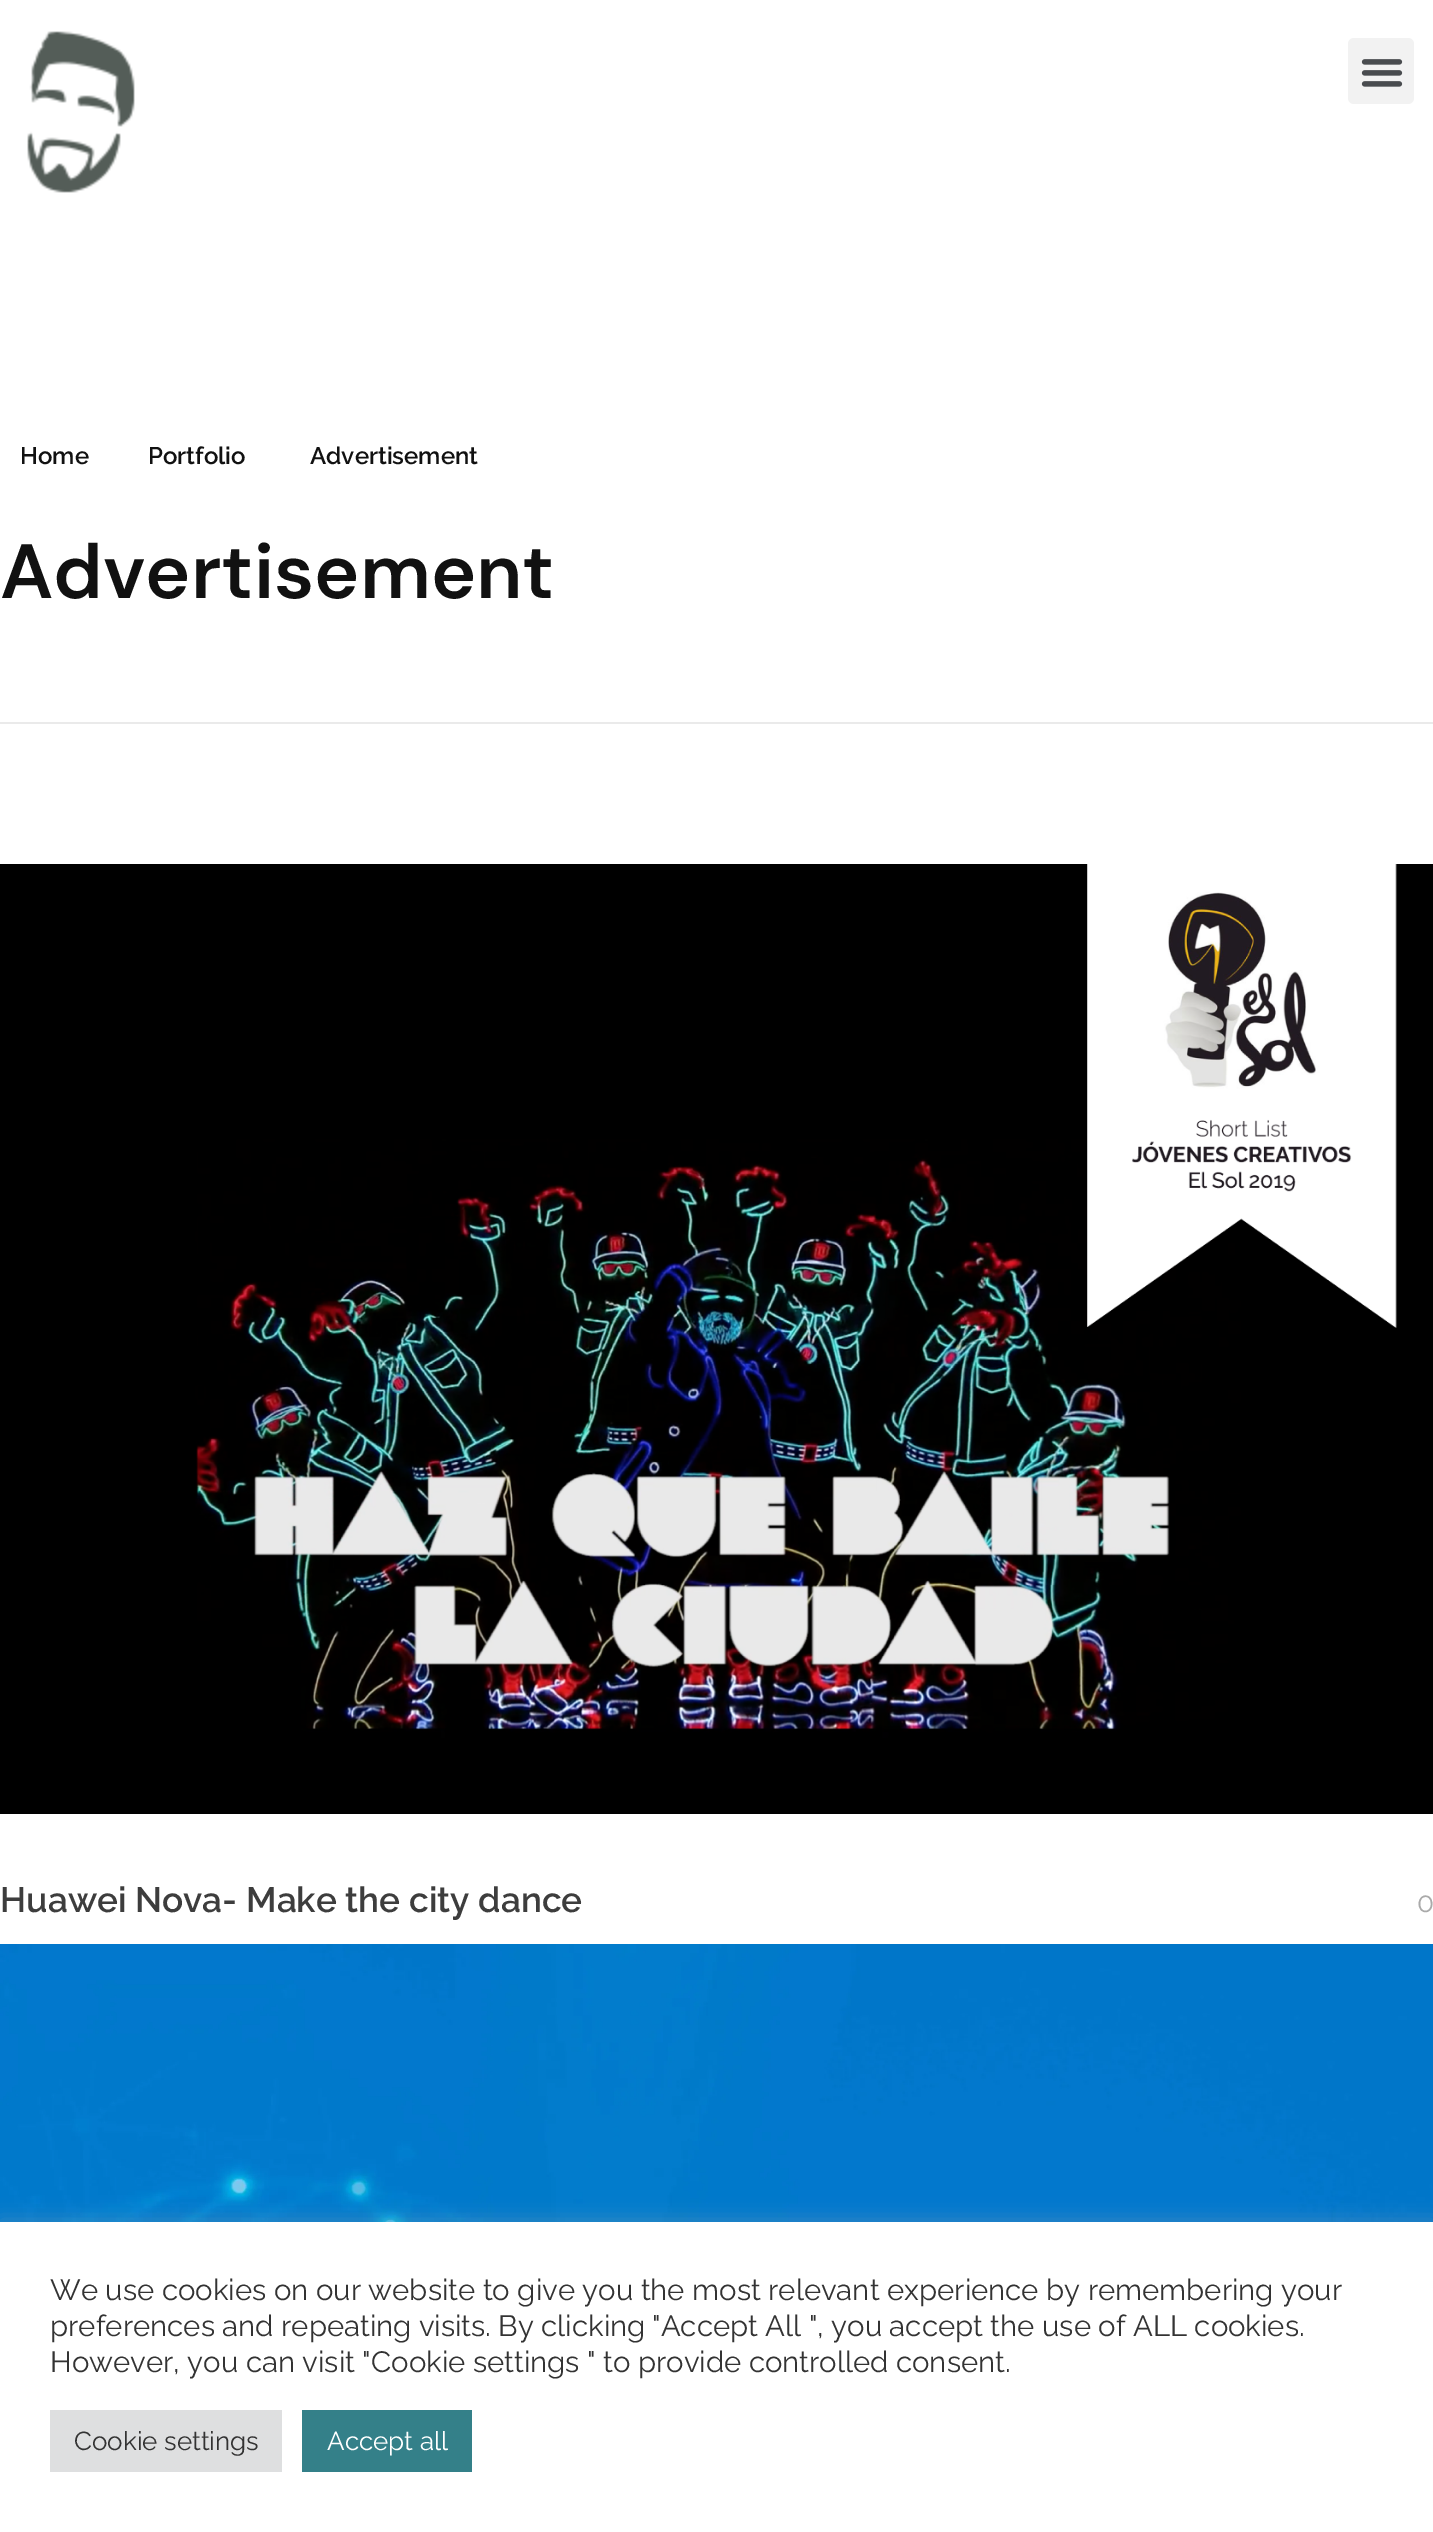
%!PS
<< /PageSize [1433 2532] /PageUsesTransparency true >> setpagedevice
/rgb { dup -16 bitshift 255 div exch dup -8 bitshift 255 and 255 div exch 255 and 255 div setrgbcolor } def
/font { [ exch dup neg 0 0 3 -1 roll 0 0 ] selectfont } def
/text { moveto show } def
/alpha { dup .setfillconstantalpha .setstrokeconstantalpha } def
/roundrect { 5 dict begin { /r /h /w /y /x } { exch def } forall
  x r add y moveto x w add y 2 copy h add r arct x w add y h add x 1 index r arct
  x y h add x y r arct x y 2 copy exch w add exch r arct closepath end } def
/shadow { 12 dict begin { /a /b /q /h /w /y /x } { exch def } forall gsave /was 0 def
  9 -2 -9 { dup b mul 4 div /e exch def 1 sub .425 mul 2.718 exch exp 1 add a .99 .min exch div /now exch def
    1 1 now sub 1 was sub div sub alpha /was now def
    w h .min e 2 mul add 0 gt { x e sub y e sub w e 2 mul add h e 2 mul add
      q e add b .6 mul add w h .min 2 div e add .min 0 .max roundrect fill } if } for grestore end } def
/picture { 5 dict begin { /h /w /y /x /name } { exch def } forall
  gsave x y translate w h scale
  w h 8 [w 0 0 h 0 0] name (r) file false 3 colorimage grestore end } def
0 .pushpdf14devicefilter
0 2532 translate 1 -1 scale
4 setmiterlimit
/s1 { /Raleway-SemiBold 24 font 16#111111 rgb } def
/s2 { /DMSans-SemiBold 76.75 font 16#111111 rgb } def
/s3 { /Raleway-SemiBold 35.25 font 16#3D3D3D rgb } def
/s4 { /Raleway-Regular 28 font 16#AAAAAA rgb } def
/s5 { /Raleway-Regular 29.35 font 16#333333 rgb } def
/s6 { /Raleway-Regular 26 font 16#333333 rgb } def
/s7 { /Raleway-Regular 26 font 16#FFFFFF rgb } def
16#FFFFFF rgb
0 0 1433 2532 rectfill
(pic1.raw) 27 31 108 162 picture
16#F2F2F2 rgb
1348 38 66 66 6 roundrect fill
(pic2.raw) 1361 59 42 28 picture
16#EAEAEA rgb
0 722 1433 2 rectfill
s1
(Home) 20 464 text
(Portfolio) 148 464 text
(Advertisement) 310 464 text
s2
(Advertisement) 0 598 text
(pic3.raw) 0 864 1433 950 picture
s3
(Huawei Nova- Make the city dance) 0 1912 text
s4
(0) 1417 1912 text
(pic4.raw) 0 1944 1433 278 picture
16#ACABAB rgb
0 2220 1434 310 0 10 0.3 shadow
16#FFFFFF rgb
0 2222 1433 310 rectfill
s5
(We use cookies on our website to give you the most relevant experience by remembering your) 50 2300 text
(preferences and repeating visits. By clicking) 50 2336 text
("Accept All ", you accept the use of ALL cookies.) 652 2336 text
(However, you can visit "Cookie settings " to provide controlled consent.) 50 2372 text
16#DEDFE0 rgb
50 2410 232 62 rectfill
s6
(Cookie settings) 74 2450 text
16#348089 rgb
302 2410 170 62 rectfill
s7
(Accept all) 327 2450 text
.poppdf14devicefilter showpage
